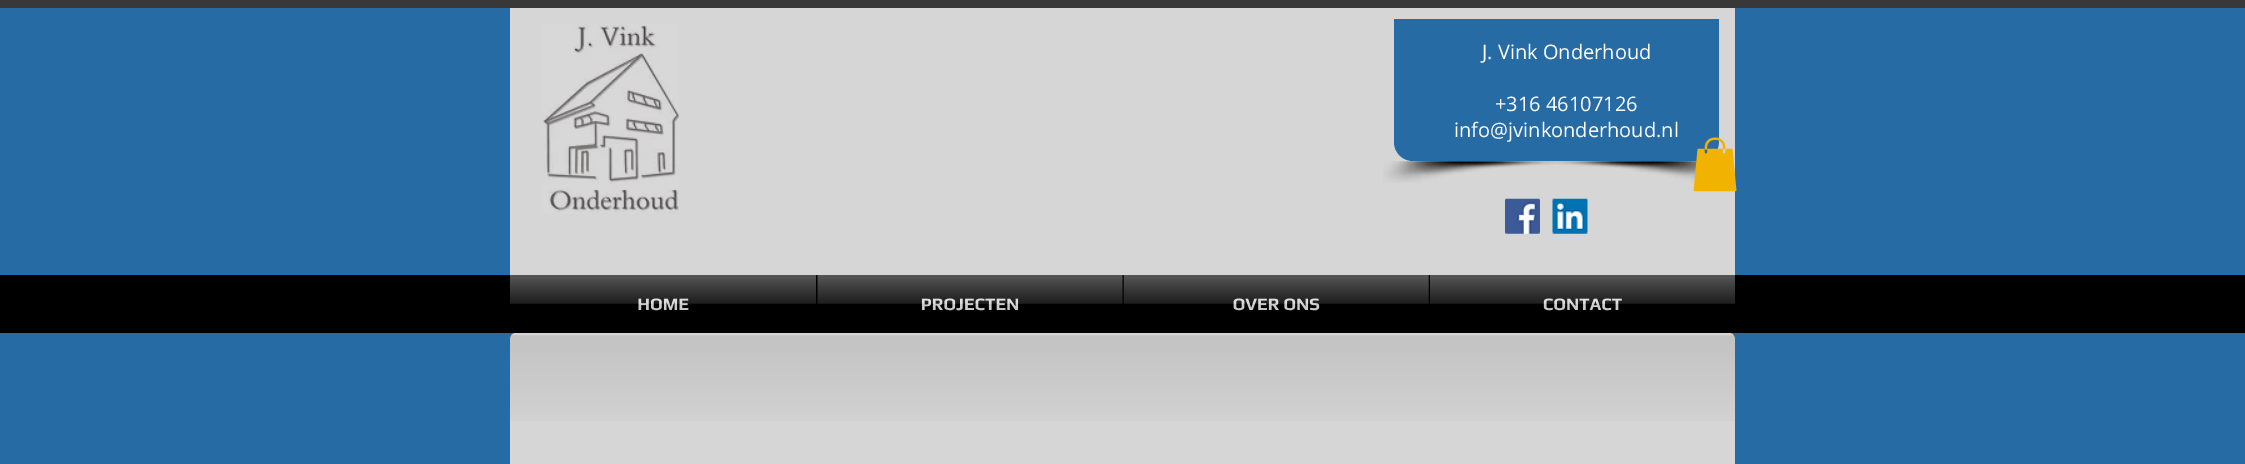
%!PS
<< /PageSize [2245 464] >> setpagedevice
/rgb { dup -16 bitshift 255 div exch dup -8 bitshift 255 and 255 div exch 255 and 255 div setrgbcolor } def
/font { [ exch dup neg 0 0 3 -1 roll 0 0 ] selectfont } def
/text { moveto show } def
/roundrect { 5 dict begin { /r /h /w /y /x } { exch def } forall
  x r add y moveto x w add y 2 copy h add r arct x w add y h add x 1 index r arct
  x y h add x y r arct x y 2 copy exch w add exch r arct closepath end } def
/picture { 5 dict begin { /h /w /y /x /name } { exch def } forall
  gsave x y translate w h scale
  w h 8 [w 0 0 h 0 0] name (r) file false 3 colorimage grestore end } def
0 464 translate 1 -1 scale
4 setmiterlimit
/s1 { /OpenSans-Regular 20 font 16#FFFFFF rgb } def
/s2 { /Play-Bold 17.5 font 16#D9D9D9 rgb } def
16#276BA5 rgb
0 0 2245 464 rectfill
16#383838 rgb
0 0 2245 8 rectfill
16#D6D6D6 rgb
510 8 1225 267 rectfill
(pic1.raw) 543 24 136 190 picture
16#276BA5 rgb
1394 19 moveto 1719 19 lineto 1719 142 lineto 1719 152.5 1710.5 161 1700 161 curveto 1413 161 lineto 1402.5 161 1394 152.5 1394 142 curveto closepath fill
s1
(J. Vink Onderhoud) 1482 59 text
(+316 46107126) 1495 111 text
(info@jvinkonderhoud.nl) 1454 137 text
(pic2.raw) 1383 161 184 22 picture
(pic3.raw) 1546 161 151 21 picture
(pic4.raw) 1693 137 44 55 picture
(pic5.raw) 1505 198 35 36 picture
(pic6.raw) 1552 198 36 36 picture
16#000000 rgb
0 275 2245 58 rectfill
s2
(HOME) 637 310 text
(pic7.raw) 510 275 306 35 picture
(PROJECTEN) 921 310 text
(pic8.raw) 817 275 306 35 picture
(OVER ONS) 1233 310 text
(pic9.raw) 1123 275 306 35 picture
(CONTACT) 1543 310 text
(pic10.raw) 1430 275 305 35 picture
16#D6D6D6 rgb
510 333 1225 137 6 roundrect fill
(pic11.raw) 510 335 1225 86 picture
showpage
